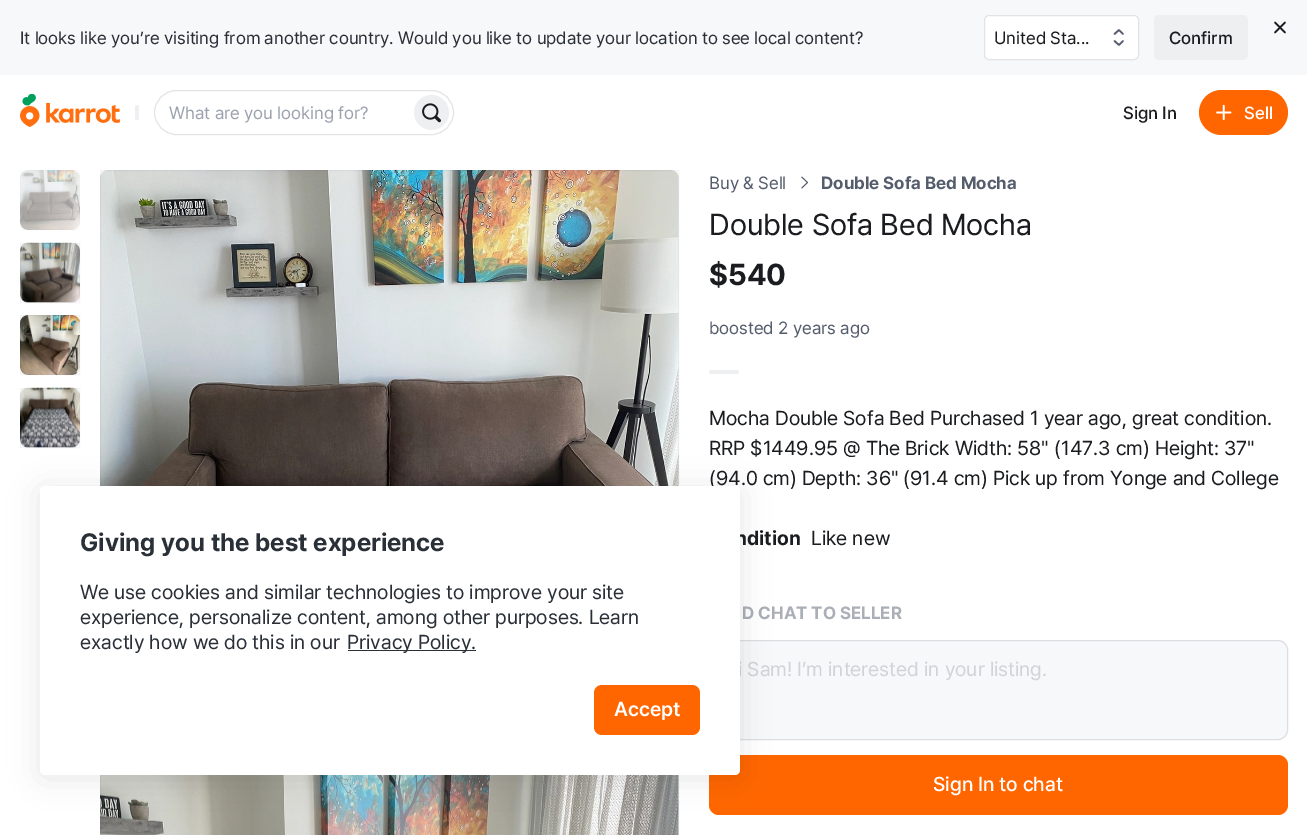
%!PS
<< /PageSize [1307 835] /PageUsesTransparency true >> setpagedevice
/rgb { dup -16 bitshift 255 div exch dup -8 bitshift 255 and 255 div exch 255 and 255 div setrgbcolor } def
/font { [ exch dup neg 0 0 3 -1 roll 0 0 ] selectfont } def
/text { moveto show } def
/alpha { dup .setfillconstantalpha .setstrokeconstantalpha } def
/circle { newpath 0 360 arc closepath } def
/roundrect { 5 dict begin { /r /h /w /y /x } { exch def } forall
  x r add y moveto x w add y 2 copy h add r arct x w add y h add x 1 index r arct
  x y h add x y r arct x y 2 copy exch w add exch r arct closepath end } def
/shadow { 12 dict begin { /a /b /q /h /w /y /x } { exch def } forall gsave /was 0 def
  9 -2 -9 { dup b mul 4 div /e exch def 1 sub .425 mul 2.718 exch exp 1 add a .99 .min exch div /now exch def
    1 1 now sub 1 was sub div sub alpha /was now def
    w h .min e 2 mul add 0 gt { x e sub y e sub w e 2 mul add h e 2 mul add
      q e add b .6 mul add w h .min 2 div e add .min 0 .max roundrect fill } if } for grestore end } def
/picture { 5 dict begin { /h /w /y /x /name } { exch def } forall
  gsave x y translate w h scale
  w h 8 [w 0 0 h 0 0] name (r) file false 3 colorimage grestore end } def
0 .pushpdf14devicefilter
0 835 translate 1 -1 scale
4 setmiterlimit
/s1 { /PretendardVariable-Regular 17.5 font 16#2A3038 rgb } def
/s2 { /PretendardVariable-Regular 17.5 font 16#1A1C20 rgb } def
/s3 { /PretendardVariable-Medium 17.5 font 16#1A1C20 rgb } def
/s4 { /PretendardVariable-Regular 17.5 font 16#9CA3AF rgb } def
/s5 { /PretendardVariable-Medium 17.5 font 16#FFFFFF rgb } def
/s6 { /PretendardVariable-Regular 17.5 font 16#555D6D rgb } def
/s7 { /PretendardVariable-Bold 17.5 font 16#555D6D rgb } def
/s8 { /PretendardVariable-Regular 30 font 16#1A1C20 rgb } def
/s9 { /PretendardVariable-Bold 30 font 16#1A1C20 rgb } def
/s10 { /PretendardVariable-Regular 20 font 16#1A1C20 rgb } def
/s11 { /PretendardVariable-Bold 20 font 16#1A1C20 rgb } def
/s12 { /PretendardVariable-Bold 17.5 font 16#AAAEB6 rgb } def
/s13 { /PretendardVariable-Regular 20 font 16#D1D3D8 rgb } def
/s14 { /PretendardVariable-Medium 20 font 16#FFFFFF rgb } def
/s15 { /PretendardVariable-Bold 25 font 16#2A3038 rgb } def
/s16 { /PretendardVariable-Regular 20 font 16#2A3038 rgb } def
/s17 { /PretendardVariable-SemiBold 20 font 16#FFFFFF rgb } def
16#FFFFFF rgb
0 0 1307 835 rectfill
16#F7F8F9 rgb
0 0 1307 75 rectfill
16#1A1C20 rgb
1.7 setlinewidth
1 setlinecap
1 setlinejoin
1285 22.5 moveto 1275 32.5 lineto 1275 22.5 moveto 1285 32.5 lineto stroke
s1
(It looks like you’re visiting from another country. Would you like to update your location to see local content?) 20 44 text
16#FFFFFF rgb
984 15 155 45 5 roundrect fill
0.12 alpha
16#1A1C20 rgb
1 setlinewidth
0 setlinecap
0 setlinejoin
984.5 15.5 154 44 4.5 roundrect stroke
1 alpha
(United Sta...) 994 44 text
16#555D6D rgb
1.7 setlinewidth
1 setlinecap
1 setlinejoin
1114.5 41 moveto 1119 45 lineto 1123 41 lineto 1123 34 moveto 1119 30 lineto 1114.5 34 lineto stroke
16#EEEFF1 rgb
1154 15 94 45 5 roundrect fill
s3
(Confirm) 1169 44 text
(pic1.raw) 20 94 100 33 picture
16#EEEFF1 rgb
135 105 4 15 2 roundrect fill
16#E4E4E5 rgb
1 setlinewidth
0 setlinecap
0 setlinejoin
154.5 90.5 299 44 22 roundrect stroke
s4
(What are you looking for?) 169 119 text
16#EEEFF1 rgb
431.5 112.5 17.5 circle fill
(pic2.raw) 422 103 19 20 picture
s3
(Sign In) 1123 119 text
16#FF6600 rgb
1199 90 89 45 22.5 roundrect fill
(pic3.raw) 1216 104 16 17 picture
s5
(Sell) 1244 119 text
16#FAFBFB rgb
20 170 60 60 8 roundrect fill
(pic4.raw) 20 170 60 60 picture
0.05 alpha
16#99A2BC rgb
20.5 170.5 59 59 rectstroke
1 alpha
16#F3F4F5 rgb
20 243 60 60 8 roundrect fill
(pic5.raw) 20 242 60 61 picture
0.05 alpha
16#001758 rgb
20.5 243.5 59 59 rectstroke
1 alpha
16#F3F4F5 rgb
20 315 60 60 8 roundrect fill
(pic6.raw) 20 315 60 60 picture
0.05 alpha
16#001758 rgb
20.5 315.5 59 59 rectstroke
1 alpha
16#F3F4F5 rgb
20 388 60 60 8 roundrect fill
(pic7.raw) 20 387 60 61 picture
0.05 alpha
16#001758 rgb
20.5 388.5 59 59 rectstroke
1 alpha
16#F3F4F5 rgb
100 170 579 579 8 roundrect fill
(pic8.raw) 100 170 579 316 picture
0.05 alpha
16#001758 rgb
100.5 170.5 578 578 rectstroke
1 alpha
16#F3F4F5 rgb
678 775 1 60 rectfill
(pic9.raw) 100 775 579 60 picture
0.05 alpha
16#001758 rgb
100.5 754.5 578 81 rectstroke
1 alpha
s6
(Buy & Sell) 709 189 text
(pic10.raw) 801 176 8 13 picture
s7
(Double Sofa Bed Mocha) 821 189 text
s8
(Double Sofa Bed Mocha) 709 235 text
s9
($540) 709 285 text
s6
(boosted 2 years ago) 709 334 text
16#EEEFF1 rgb
709 370 30 4 2 roundrect fill
s10
(Mocha Double Sofa Bed Purchased 1 year ago, great condition.) 709 425 text
(RRP $1449.95 @ The Brick Width: 58" \(147.3 cm\) Height: 37") 709 455 text
(\(94.0 cm\) Depth: 36" \(91.4 cm\) Pick up from Yonge and College) 709 485 text
s11
(ndition) 735 545 text
s10
(Like new) 811 545 text
s12
(D CHAT TO SELLER) 742 619 text
16#F7F8F9 rgb
709.5 640.5 578 99 9.5 roundrect gsave fill grestore
16#DCDEE3 rgb
stroke
s13
(i Sam! I’m interested in your listing.) 738 676 text
16#FF6600 rgb
709 755 579 60 10 roundrect fill
s14
(Sign In to chat) 933 791 text
16#000000 rgb
40 489 700 289 5 15 0.1 shadow
16#FFFFFF rgb
40 486 700 289 5 roundrect fill
s15
(Giving you the best experience) 80 551 text
s16
(We use cookies and similar technologies to improve your site) 80 599 text
(experience, personalize content, among other purposes. Learn) 80 624 text
(exactly how we do this in our) 80 649 text
348 650 128 1 rectfill
(Privacy Policy.) 347 649 text
16#FF6600 rgb
594 685 106 50 8 roundrect fill
s17
(Accept) 614 716 text
.poppdf14devicefilter showpage
